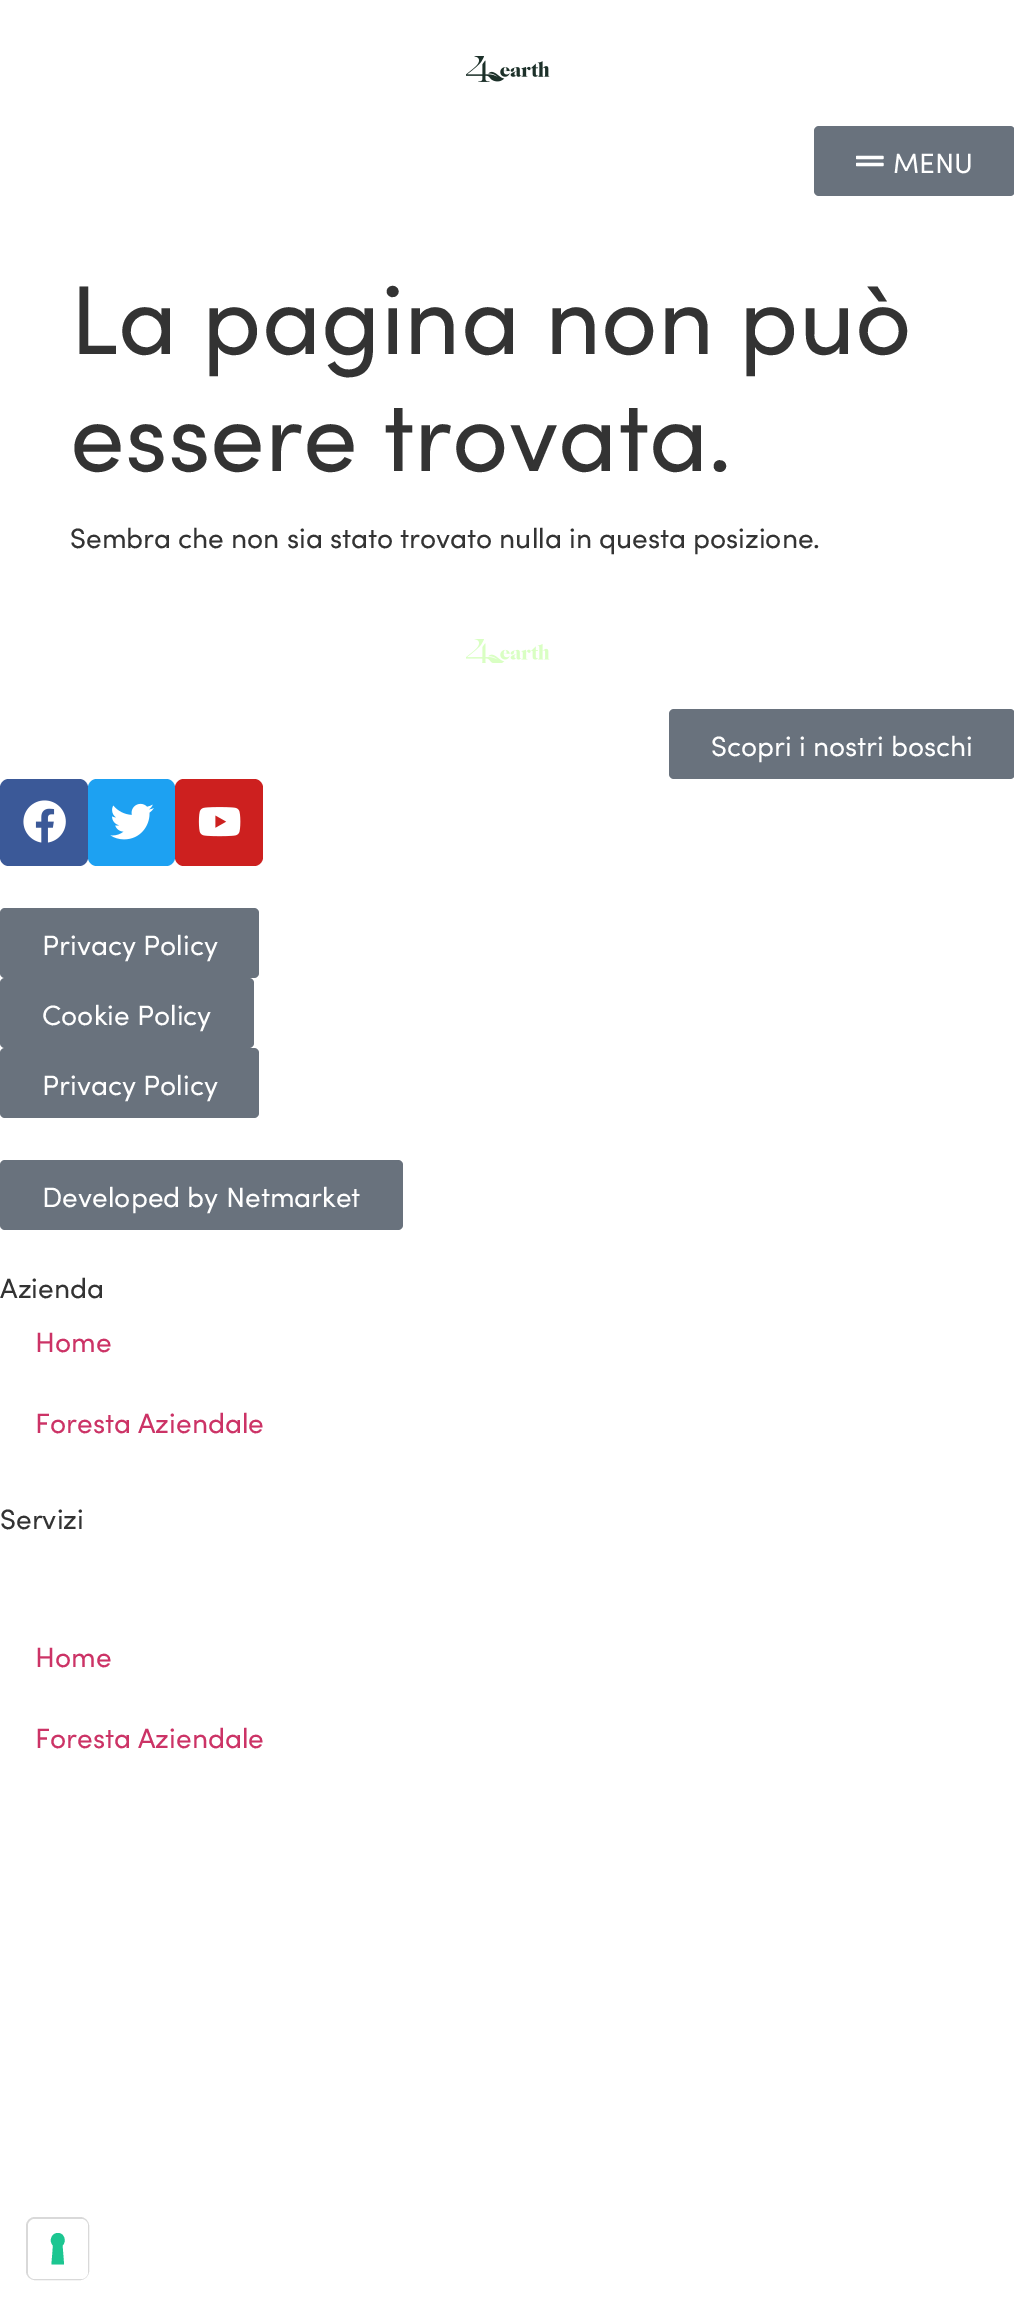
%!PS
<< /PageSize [1014 2306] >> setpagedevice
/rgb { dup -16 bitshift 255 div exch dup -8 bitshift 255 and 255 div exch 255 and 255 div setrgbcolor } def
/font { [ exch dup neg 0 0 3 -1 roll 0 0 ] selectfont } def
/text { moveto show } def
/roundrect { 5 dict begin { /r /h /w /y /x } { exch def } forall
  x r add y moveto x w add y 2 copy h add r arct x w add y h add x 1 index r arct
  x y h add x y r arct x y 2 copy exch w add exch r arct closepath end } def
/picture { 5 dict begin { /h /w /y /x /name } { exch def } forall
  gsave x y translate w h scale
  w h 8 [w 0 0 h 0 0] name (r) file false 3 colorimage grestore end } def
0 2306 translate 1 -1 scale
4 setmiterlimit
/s1 { /Sofia-Regular 28 font 16#FFFFFF rgb } def
/s2 { /Sofia-Regular 98 font 16#333333 rgb } def
/s3 { /Sofia-Regular 28 font 16#333333 rgb } def
/s4 { /Sofia-Regular 28 font 16#CC3366 rgb } def
16#FFFFFF rgb
0 0 1014 2306 rectfill
(pic1.raw) 466 56 84 26 picture
16#69727D rgb
814 126 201 70 5 roundrect fill
(pic2.raw) 856 155 28 12 picture
s1
(MENU) 893 173 text
s2
(La pagina non può) 70 354 text
(essere trovata.) 70 471 text
s3
(Sembra che non sia stato trovato nulla in questa posizione.) 70 548 text
(pic3.raw) 466 639 84 24 picture
16#69727D rgb
669 709 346 70 5 roundrect fill
s1
(Scopri i nostri boschi) 711 756 text
16#3B5998 rgb
0 779 88 87 9 roundrect fill
(pic4.raw) 23 800 43 43 picture
16#1DA1F2 rgb
88 779 87 87 9 roundrect fill
(pic5.raw) 110 803 44 37 picture
16#CD201F rgb
175 779 88 87 9 roundrect fill
(pic6.raw) 198 807 43 30 picture
16#69727D rgb
0 908 259 70 5 roundrect fill
s1
(Privacy Policy) 42 955 text
16#69727D rgb
0 978 254 70 5 roundrect fill
s1
(Cookie Policy) 42 1025 text
16#69727D rgb
0 1048 259 70 5 roundrect fill
s1
(Privacy Policy) 42 1095 text
16#69727D rgb
0 1160 403 70 5 roundrect fill
s1
(Developed by Netmarket) 42 1207 text
s3
(Azienda) 0 1298 text
s4
(Home) 35 1352 text
(Foresta Aziendale) 35 1433 text
s3
(Servizi) 0 1529 text
s4
(Home) 35 1667 text
(Foresta Aziendale) 35 1748 text
16#D9D9D9 rgb
2 setlinewidth
27 2218 61 61 8 roundrect stroke
16#FFFFFF rgb
28 2219 60 60 7 roundrect fill
16#1CC691 rgb
58 2233 moveto 64 2233 67 2241 62.5 2245.5 curveto 64 2264.5 lineto 51.5 2264.5 lineto 53 2245.5 lineto 48.5 2241 51.5 2233 58 2233 curveto closepath eofill
showpage
